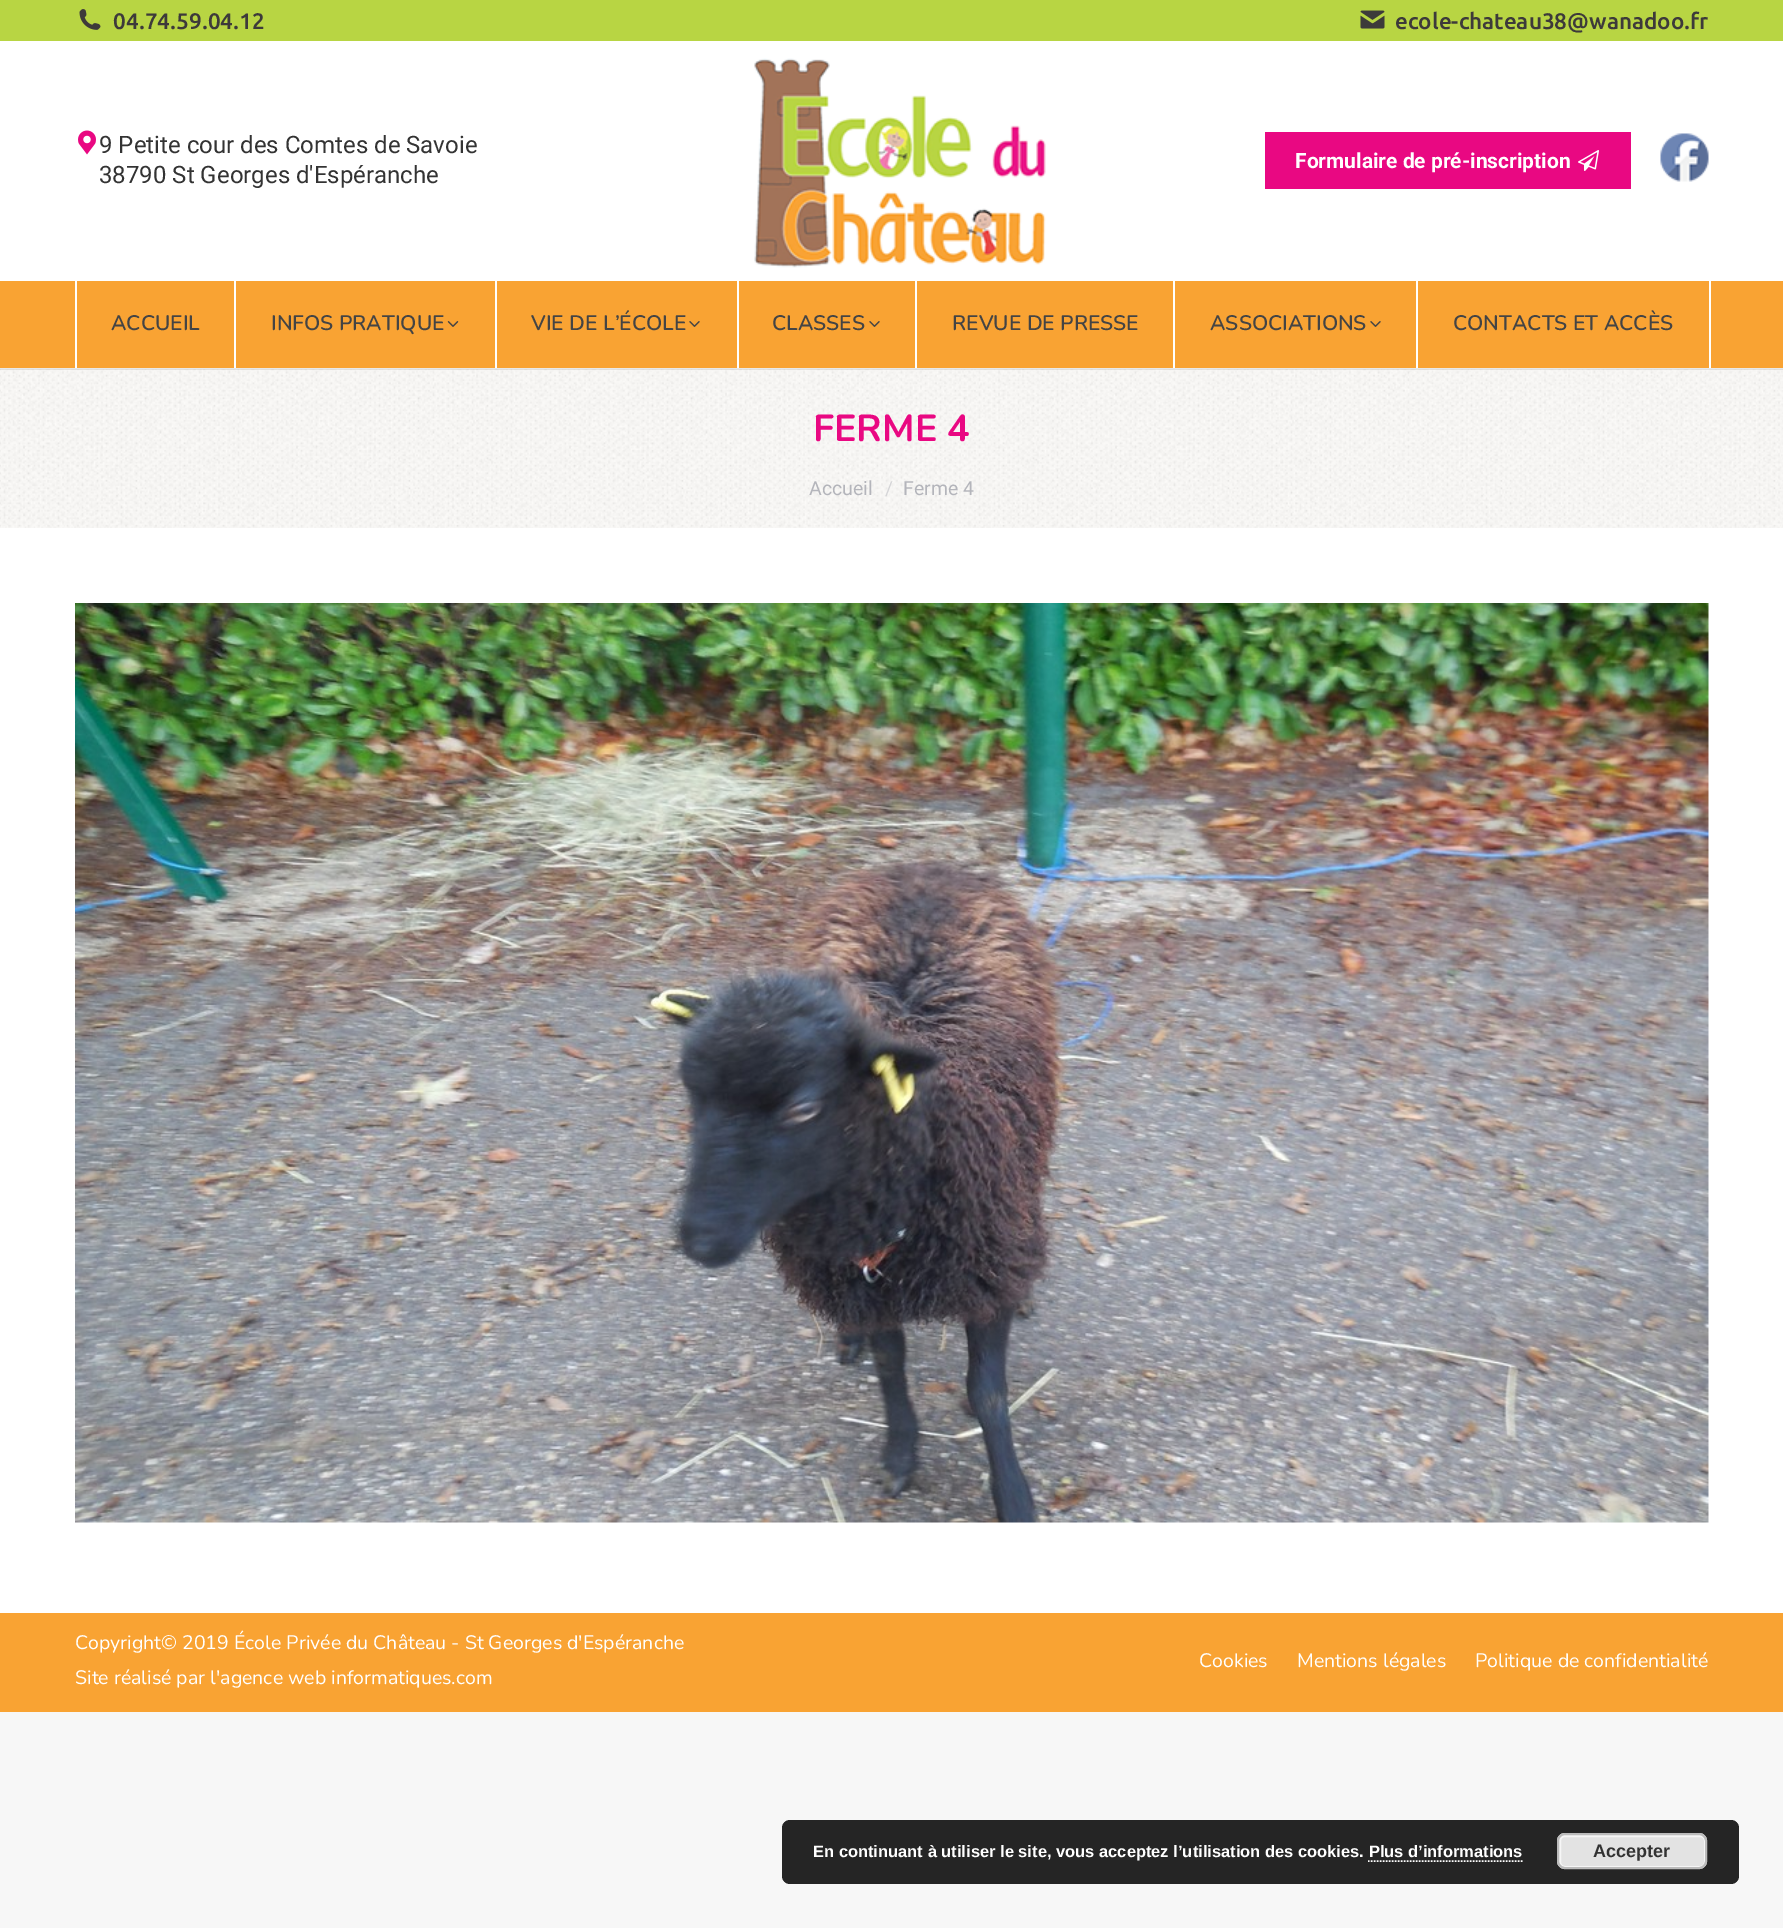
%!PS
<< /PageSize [1783 1928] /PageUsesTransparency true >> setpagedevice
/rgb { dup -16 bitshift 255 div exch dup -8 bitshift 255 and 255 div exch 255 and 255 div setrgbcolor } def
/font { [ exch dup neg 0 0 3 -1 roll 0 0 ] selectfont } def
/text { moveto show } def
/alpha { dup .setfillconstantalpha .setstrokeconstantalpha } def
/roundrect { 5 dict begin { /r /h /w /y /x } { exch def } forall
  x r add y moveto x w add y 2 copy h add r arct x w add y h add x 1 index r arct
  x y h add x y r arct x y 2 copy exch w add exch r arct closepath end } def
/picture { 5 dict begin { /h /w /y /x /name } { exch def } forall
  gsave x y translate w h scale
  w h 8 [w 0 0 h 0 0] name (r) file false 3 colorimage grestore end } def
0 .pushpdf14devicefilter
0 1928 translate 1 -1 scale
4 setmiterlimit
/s1 { /Ubuntu-Medium 22.5 font 16#3D3A3A rgb } def
/s2 { /Roboto-Regular 24 font 16#333333 rgb } def
/s3 { /Roboto-Bold 21 font 16#FFFFFF rgb } def
/s4 { /Nunito-SemiBold 21 font 16#444444 rgb } def
/s5 { /Nunito-Bold 37.5 font 16#E90882 rgb } def
/s6 { /Roboto-Regular 19.5 font 16#B4B5BB rgb } def
/s7 { /Roboto-Regular 19.5 font 16#D5D5D7 rgb } def
/s8 { /Nunito-Regular 19.5 font 16#FFFFFF rgb } def
/s9 { /LiberationSans-Bold 16.5 font 16#FFFFFF rgb } def
/s10 { /LiberationSans-Bold 18 font 16#333333 rgb } def
16#F7F7F7 rgb
0 0 1783 1928 rectfill
16#FFFFFF rgb
0 41 1783 1572 rectfill
(pic9.raw) 0 369 1783 159 picture
0.11 alpha
16#333333 rgb
0 368 1783 2 rectfill
1 alpha
16#B8D543 rgb
0 0 1783 41 rectfill
(pic1.raw) 79 9 22 21 picture
s1
(04.74.59.04.12) 113 29 text
(pic2.raw) 1360 10 25 19 picture
(ecole-chateau38@wanadoo.fr) 1395 29 text
(pic3.raw) 78 130 18 25 picture
s2
(9 Petite cour des Comtes de Savoie) 99 153 text
(38790 St Georges d'Espéranche) 99 183 text
(pic4.raw) 754 58 292 210 picture
16#E90882 rgb
1265 132 366 57 rectfill
s3
(Formulaire de pré-inscription) 1295 168 text
(pic5.raw) 1578 150 21 21 picture
(pic6.raw) 1660 133 49 49 picture
16#F9A333 rgb
0 281 1783 87 rectfill
16#FFFFFF rgb
75 281 2 87 rectfill
s4
(ACCUEIL) 111 330 text
16#FFFFFF rgb
234 281 2 87 rectfill
s4
(INFOS PRATIQUE) 271 330 text
(pic7.raw) 447 321 12 6 picture
16#FFFFFF rgb
495 281 2 87 rectfill
s4
(VIE DE L’ÉCOLE) 531 330 text
(pic8.raw) 689 321 11 6 picture
16#FFFFFF rgb
737 281 2 87 rectfill
s4
(CLASSES) 772 330 text
(pic8.raw) 869 321 11 6 picture
16#FFFFFF rgb
915 281 2 87 rectfill
s4
(REVUE DE PRESSE) 952 330 text
16#FFFFFF rgb
1173 281 2 87 rectfill
s4
(ASSOCIATIONS) 1210 330 text
(pic8.raw) 1370 321 11 6 picture
16#FFFFFF rgb
1416 281 2 87 rectfill
s4
(CONTACTS ET ACCÈS) 1453 330 text
16#FFFFFF rgb
1709 281 2 87 rectfill
s5
(FERME 4) 813 441 text
s6
(Accueil) 809 495 text
s7
(/) 885 495 text
s6
(Ferme 4) 903 495 text
(pic10.raw) 75 603 1634 920 picture
16#F9A333 rgb
0 1613 1783 99 rectfill
s8
(Copyright© 2019 École Privée du Château - St Georges d'Espéranche) 75 1649 text
(Site réalisé par l'agence web informatiques.com) 75 1684 text
(Cookies) 1199 1667 text
(Mentions légales) 1297 1667 text
(Politique de confidentialité) 1475 1667 text
16#252525 rgb
782 1820 957 64 8 roundrect fill
s9
(En continuant à utiliser le site, vous acceptez l’utilisation des cookies. Plus d’informations) 813 1857 text
16#E3E3E3 rgb
1557 1833 150 36 8 roundrect fill
16#F6F6F6 rgb
2 setlinewidth
1560 1836 145 31 5 roundrect stroke
16#BBBBBB rgb
1558 1834 148 34 7 roundrect stroke
s10
(Accepter) 1593 1857 text
16#FFFFFF rgb
1.5 setlinewidth
[1.5 1.5] 0 setdash
1368 1861 moveto 1522.5 1861 lineto stroke
.poppdf14devicefilter showpage
